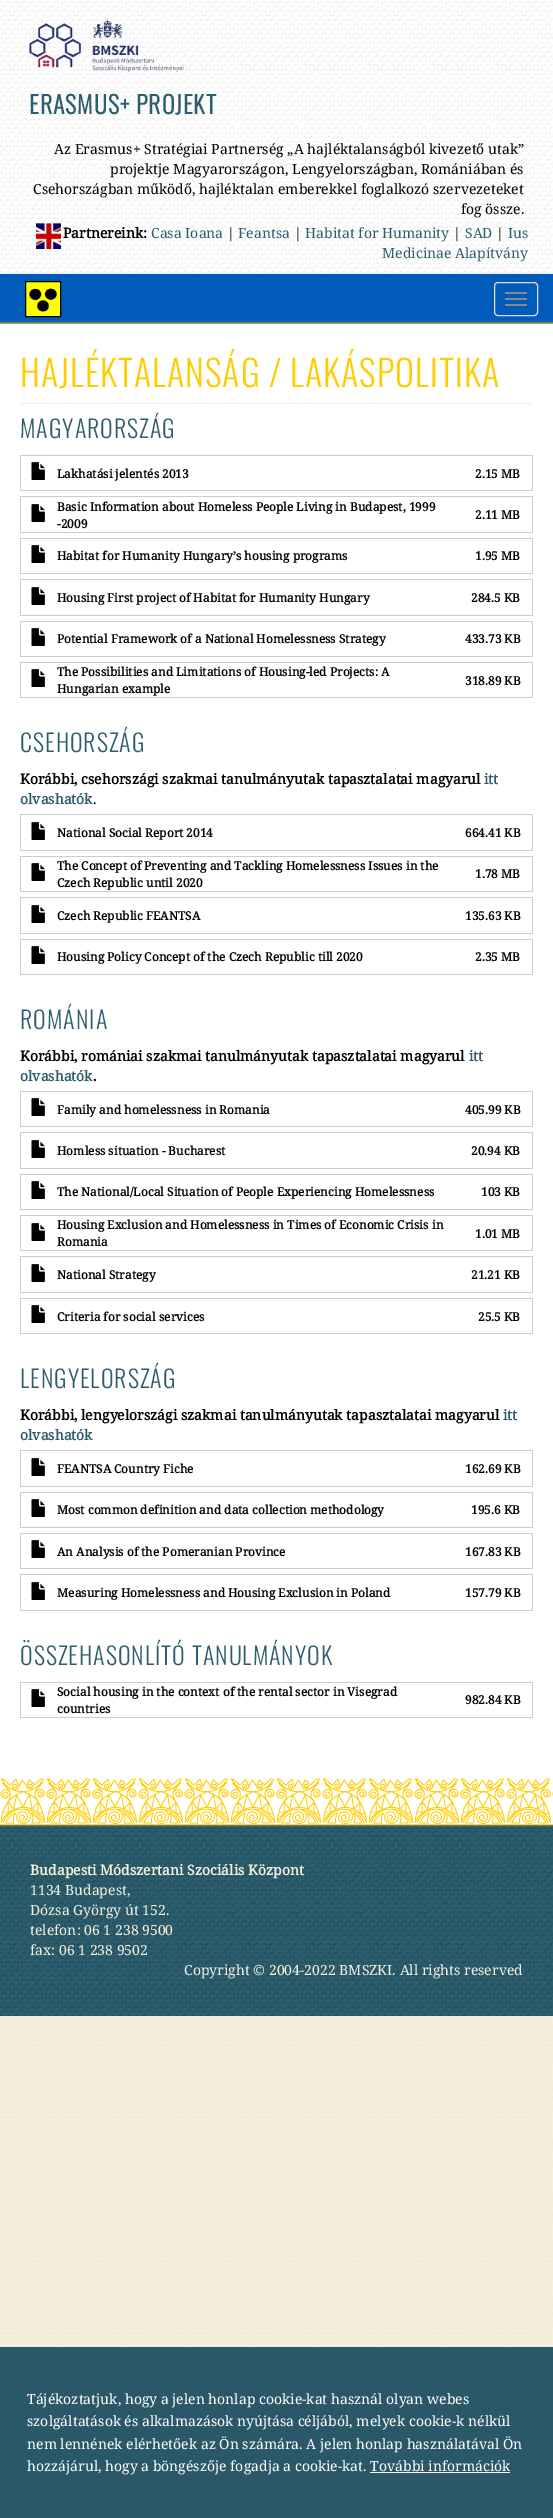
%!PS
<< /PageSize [553 2518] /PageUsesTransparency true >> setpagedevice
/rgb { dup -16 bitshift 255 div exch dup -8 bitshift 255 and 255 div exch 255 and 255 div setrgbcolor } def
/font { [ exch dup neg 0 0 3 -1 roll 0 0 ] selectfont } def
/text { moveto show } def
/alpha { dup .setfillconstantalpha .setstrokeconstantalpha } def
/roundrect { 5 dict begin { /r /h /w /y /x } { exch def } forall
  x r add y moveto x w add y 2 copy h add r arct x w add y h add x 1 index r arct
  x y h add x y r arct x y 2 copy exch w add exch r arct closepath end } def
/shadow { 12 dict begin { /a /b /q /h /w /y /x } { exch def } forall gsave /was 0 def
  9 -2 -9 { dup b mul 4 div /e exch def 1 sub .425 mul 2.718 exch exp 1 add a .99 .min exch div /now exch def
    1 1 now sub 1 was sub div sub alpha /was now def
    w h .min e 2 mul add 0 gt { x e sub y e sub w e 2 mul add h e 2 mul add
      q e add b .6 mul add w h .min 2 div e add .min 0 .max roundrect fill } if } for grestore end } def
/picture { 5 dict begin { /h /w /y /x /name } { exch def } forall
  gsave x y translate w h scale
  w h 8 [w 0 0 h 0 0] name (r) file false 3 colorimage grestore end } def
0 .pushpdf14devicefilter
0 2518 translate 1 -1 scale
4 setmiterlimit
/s1 { /NotoSerif-Regular 14 font 16#000000 rgb } def
/s2 { /NotoSerif-Bold 14 font 16#000000 rgb } def
/s3 { /NotoSerif-Regular 14 font 16#2E5D6E rgb } def
/s4 { /NotoSerif-Bold 11.9 font 16#000000 rgb } def
/s5 { /NotoSerif-Bold 14 font 16#2E5D6E rgb } def
/s6 { /NotoSerif-Bold 14 font 16#F5F0DC rgb } def
/s7 { /NotoSerif-Regular 14 font 16#F5F0DC rgb } def
/s8 { /NotoSerif-Regular 14 font 16#FFFFFF rgb } def
16#FFFFFF rgb
0 0 553 2518 rectfill
(pic1.raw) 0 2016 553 331 picture
(pic2.raw) 0 0 553 273 picture
16#EEEEEE rgb
0 273 553 1 rectfill
(pic3.raw) 29 19 155 53 picture
/Oswald-Bold 24 font
16#2E5D6E rgb
29 114 moveto 1 0 (ERASMUS+ PROJEKT) ashow
s1
(Az Erasmus+ Stratégiai Partnerség „A hajléktalanságból kivezető utak”) 54 154 text
(projektje Magyarországon, Lengyelországban, Romániában és) 110 174 text
(Csehországban működő, hajléktalan emberekkel foglalkozó szervezeteket) 33 194 text
(fog össze.) 461 214 text
(pic4.raw) 36 223 25 26 picture
s2
(Partnereink:) 63 238 text
s3
(Casa Ioana) 151 238 text
s1
(|) 227 238 text
s3
(Feantsa) 238 238 text
s1
(|) 294 238 text
s3
(Habitat for Humanity) 305 238 text
s1
(|) 453 238 text
s3
(SAD) 465 238 text
s1
(|) 496 238 text
s3
(Ius) 508 238 text
(Medicinae Alapítvány) 382 258 text
16#005BBB rgb
0 274 553 50 rectfill
16#FFFF00 rgb
26 282 34 34 rectfill
(pic5.raw) 29 288 29 24 picture
16#000000 rgb
25.5 281.5 35 35 rectstroke
16#DDDDDD rgb
494.5 282.5 43 33 3.5 roundrect stroke
16#888888 rgb
505 292 22 2 1 roundrect fill
505 298 22 2 1 roundrect fill
505 304 22 2 1 roundrect fill
(pic8.raw) 0 1825 553 191 picture
16#E5E5E5 rgb
0 1824 553 1 rectfill
16#FFCC00 rgb
-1 323 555 1502 0 1 1 shadow
16#FFFFFF rgb
0 324 553 1500 rectfill
(pic6.raw) 0 1778 553 46 picture
16#EEEEEE rgb
20 403 513 1 rectfill
/Oswald-Light 36 font
16#FFCC00 rgb
20 387 moveto 1 0 (HAJLÉKTALANSÁG / LAKÁSPOLITIKA) ashow
/Oswald-Light 24 font
16#2E5D6E rgb
20 438 moveto 1 0 (MAGYARORSZÁG) ashow
16#CCCCCC rgb
20 455 513 1 rectfill
20 490 443 1 rectfill
20 455 1 36 rectfill
(pic7.raw) 31 462 14 18 picture
s4
(Lakhatási jelentés 2013) 57 478 text
16#CCCCCC rgb
532 455 1 36 rectfill
463 490 70 1 rectfill
s4
(2.15 MB) 475 478 text
16#CCCCCC rgb
20 496 513 1 rectfill
20 532 443 1 rectfill
20 496 1 37 rectfill
(pic7.raw) 31 504 14 18 picture
s4
(Basic Information about Homeless People Living in Budapest, 1999) 57 511 text
(-2009) 57 528 text
16#CCCCCC rgb
532 496 1 37 rectfill
463 532 70 1 rectfill
s4
(2.11 MB) 475 519 text
16#CCCCCC rgb
20 538 513 1 rectfill
20 573 443 1 rectfill
20 538 1 36 rectfill
(pic7.raw) 31 545 14 18 picture
s4
(Habitat for Humanity Hungary’s housing programs) 57 560 text
16#CCCCCC rgb
532 538 1 36 rectfill
463 573 70 1 rectfill
s4
(1.95 MB) 475 560 text
16#CCCCCC rgb
20 579 513 1 rectfill
20 615 439 1 rectfill
20 579 1 37 rectfill
(pic7.raw) 31 587 14 18 picture
s4
(Housing First project of Habitat for Humanity Hungary) 57 602 text
16#CCCCCC rgb
532 579 1 37 rectfill
459 615 74 1 rectfill
s4
(284.5 KB) 471 602 text
16#CCCCCC rgb
20 621 513 1 rectfill
20 656 433 1 rectfill
20 621 1 36 rectfill
(pic7.raw) 31 628 14 18 picture
s4
(Potential Framework of a National Homelessness Strategy) 57 643 text
16#CCCCCC rgb
532 621 1 36 rectfill
453 656 80 1 rectfill
s4
(433.73 KB) 465 643 text
16#CCCCCC rgb
20 662 513 1 rectfill
20 697 433 1 rectfill
20 662 1 36 rectfill
(pic7.raw) 31 669 14 18 picture
s4
(The Possibilities and Limitations of Housing-led Projects: A) 57 676 text
(Hungarian example) 57 693 text
16#CCCCCC rgb
532 662 1 36 rectfill
453 697 80 1 rectfill
s4
(318.89 KB) 465 685 text
/Oswald-Light 24 font
16#2E5D6E rgb
20 752 moveto 1 0 (CSEHORSZÁG) ashow
s2
(Korábbi, csehországi szakmai tanulmányutak tapasztalatai magyarul) 20 784 text
s5
(itt) 484 784 text
(olvashatók) 20 804 text
s1
(.) 93 804 text
16#CCCCCC rgb
20 814 513 1 rectfill
20 850 433 1 rectfill
20 814 1 37 rectfill
(pic7.raw) 31 822 14 18 picture
s4
(National Social Report 2014) 57 837 text
16#CCCCCC rgb
532 814 1 37 rectfill
453 850 80 1 rectfill
s4
(664.41 KB) 465 837 text
16#CCCCCC rgb
20 856 513 1 rectfill
20 891 443 1 rectfill
20 856 1 36 rectfill
(pic7.raw) 31 863 14 18 picture
s4
(The Concept of Preventing and Tackling Homelessness Issues in the) 57 870 text
(Czech Republic until 2020) 57 887 text
16#CCCCCC rgb
532 856 1 36 rectfill
463 891 70 1 rectfill
s4
(1.78 MB) 475 878 text
16#CCCCCC rgb
20 897 513 1 rectfill
20 933 433 1 rectfill
20 897 1 37 rectfill
(pic7.raw) 31 905 14 18 picture
s4
(Czech Republic FEANTSA) 57 920 text
16#CCCCCC rgb
532 897 1 37 rectfill
453 933 80 1 rectfill
s4
(135.63 KB) 465 920 text
16#CCCCCC rgb
20 939 513 1 rectfill
20 974 443 1 rectfill
20 939 1 36 rectfill
(pic7.raw) 31 946 14 18 picture
s4
(Housing Policy Concept of the Czech Republic till 2020) 57 961 text
16#CCCCCC rgb
532 939 1 36 rectfill
463 974 70 1 rectfill
s4
(2.35 MB) 475 961 text
/Oswald-Light 24 font
16#2E5D6E rgb
20 1029 moveto 1 0 (ROMÁNIA) ashow
s2
(Korábbi, romániai szakmai tanulmányutak tapasztalatai magyarul) 20 1061 text
s5
(itt) 469 1061 text
(olvashatók) 20 1081 text
s2
(.) 93 1081 text
16#CCCCCC rgb
20 1091 513 1 rectfill
20 1126 433 1 rectfill
20 1091 1 36 rectfill
(pic7.raw) 31 1098 14 18 picture
s4
(Family and homelessness in Romania) 57 1114 text
16#CCCCCC rgb
532 1091 1 36 rectfill
453 1126 80 1 rectfill
s4
(405.99 KB) 465 1114 text
16#CCCCCC rgb
20 1132 513 1 rectfill
20 1168 439 1 rectfill
20 1132 1 37 rectfill
(pic7.raw) 31 1140 14 18 picture
s4
(Homless situation - Bucharest) 57 1155 text
16#CCCCCC rgb
532 1132 1 37 rectfill
459 1168 74 1 rectfill
s4
(20.94 KB) 471 1155 text
16#CCCCCC rgb
20 1174 513 1 rectfill
20 1209 449 1 rectfill
20 1174 1 36 rectfill
(pic7.raw) 31 1181 14 18 picture
s4
(The National/Local Situation of People Experiencing Homelessness) 57 1196 text
16#CCCCCC rgb
532 1174 1 36 rectfill
469 1209 64 1 rectfill
s4
(103 KB) 481 1196 text
16#CCCCCC rgb
20 1215 513 1 rectfill
20 1250 443 1 rectfill
20 1215 1 36 rectfill
(pic7.raw) 31 1223 14 18 picture
s4
(Housing Exclusion and Homelessness in Times of Economic Crisis in) 57 1229 text
(Romania) 57 1246 text
16#CCCCCC rgb
532 1215 1 36 rectfill
463 1250 70 1 rectfill
s4
(1.01 MB) 475 1238 text
16#CCCCCC rgb
20 1256 513 1 rectfill
20 1292 439 1 rectfill
20 1256 1 37 rectfill
(pic7.raw) 31 1264 14 18 picture
s4
(National Strategy) 57 1279 text
16#CCCCCC rgb
532 1256 1 37 rectfill
459 1292 74 1 rectfill
s4
(21.21 KB) 471 1279 text
16#CCCCCC rgb
20 1298 513 1 rectfill
20 1333 446 1 rectfill
20 1298 1 36 rectfill
(pic7.raw) 31 1305 14 18 picture
s4
(Criteria for social services) 57 1321 text
16#CCCCCC rgb
532 1298 1 36 rectfill
466 1333 67 1 rectfill
s4
(25.5 KB) 478 1321 text
/Oswald-Light 24 font
16#2E5D6E rgb
20 1388 moveto 1 0 (LENGYELORSZÁG) ashow
s2
(Korábbi, lengyelországi szakmai tanulmányutak tapasztalatai magyarul) 20 1420 text
s5
(itt) 503 1420 text
(olvashatók) 20 1440 text
16#CCCCCC rgb
20 1450 513 1 rectfill
20 1486 433 1 rectfill
20 1450 1 37 rectfill
(pic7.raw) 31 1458 14 18 picture
s4
(FEANTSA Country Fiche) 57 1473 text
16#CCCCCC rgb
532 1450 1 37 rectfill
453 1486 80 1 rectfill
s4
(162.69 KB) 465 1473 text
16#CCCCCC rgb
20 1492 513 1 rectfill
20 1527 439 1 rectfill
20 1492 1 36 rectfill
(pic7.raw) 31 1499 14 18 picture
s4
(Most common definition and data collection methodology) 57 1514 text
16#CCCCCC rgb
532 1492 1 36 rectfill
459 1527 74 1 rectfill
s4
(195.6 KB) 471 1514 text
16#CCCCCC rgb
20 1533 513 1 rectfill
20 1568 433 1 rectfill
20 1533 1 36 rectfill
(pic7.raw) 31 1540 14 18 picture
s4
(An Analysis of the Pomeranian Province) 57 1556 text
16#CCCCCC rgb
532 1533 1 36 rectfill
453 1568 80 1 rectfill
s4
(167.83 KB) 465 1556 text
16#CCCCCC rgb
20 1574 513 1 rectfill
20 1610 433 1 rectfill
20 1574 1 37 rectfill
(pic7.raw) 31 1582 14 18 picture
s4
(Measuring Homelessness and Housing Exclusion in Poland) 57 1597 text
16#CCCCCC rgb
532 1574 1 37 rectfill
453 1610 80 1 rectfill
s4
(157.79 KB) 465 1597 text
/Oswald-Light 24 font
16#2E5D6E rgb
20 1665 moveto 1 0 (ÖSSZEHASONLÍTÓ TANULMÁNYOK) ashow
16#CCCCCC rgb
20 1682 513 1 rectfill
20 1717 433 1 rectfill
20 1682 1 36 rectfill
(pic7.raw) 31 1689 14 18 picture
s4
(Social housing in the context of the rental sector in Visegrad) 57 1696 text
(countries) 57 1713 text
16#CCCCCC rgb
532 1682 1 36 rectfill
453 1717 80 1 rectfill
s4
(982.84 KB) 465 1704 text
s6
(Budapesti Módszertani Szociális Központ) 30 1875 text
s7
(1134 Budapest,) 30 1895 text
(Dózsa György út 152.) 30 1915 text
(telefon: 06 1 238 9500) 30 1935 text
(fax: 06 1 238 9502) 30 1955 text
(Copyright © 2004-2022 BMSZKI. All rights reserved) 184 1975 text
16#2A5868 rgb
0 2347 553 171 rectfill
s8
(Tájékoztatjuk, hogy a jelen honlap cookie-kat használ olyan webes) 27 2404 text
(szolgáltatások és alkalmazások nyújtása céljából, melyek cookie-k nélkül) 27 2426 text
(nem lennének elérhetőek az Ön számára. A jelen honlap használatával Ön) 27 2449 text
(hozzájárul, hogy a böngészője fogadja a cookie-kat. További információk) 27 2471 text
370 2472 140 1 rectfill
.poppdf14devicefilter showpage
